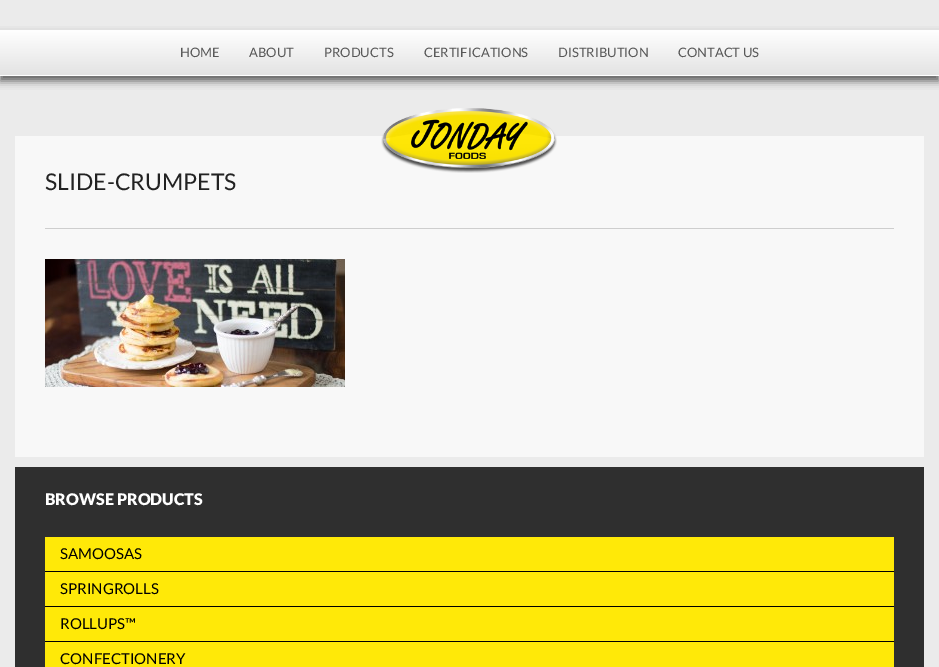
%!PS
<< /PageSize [939 667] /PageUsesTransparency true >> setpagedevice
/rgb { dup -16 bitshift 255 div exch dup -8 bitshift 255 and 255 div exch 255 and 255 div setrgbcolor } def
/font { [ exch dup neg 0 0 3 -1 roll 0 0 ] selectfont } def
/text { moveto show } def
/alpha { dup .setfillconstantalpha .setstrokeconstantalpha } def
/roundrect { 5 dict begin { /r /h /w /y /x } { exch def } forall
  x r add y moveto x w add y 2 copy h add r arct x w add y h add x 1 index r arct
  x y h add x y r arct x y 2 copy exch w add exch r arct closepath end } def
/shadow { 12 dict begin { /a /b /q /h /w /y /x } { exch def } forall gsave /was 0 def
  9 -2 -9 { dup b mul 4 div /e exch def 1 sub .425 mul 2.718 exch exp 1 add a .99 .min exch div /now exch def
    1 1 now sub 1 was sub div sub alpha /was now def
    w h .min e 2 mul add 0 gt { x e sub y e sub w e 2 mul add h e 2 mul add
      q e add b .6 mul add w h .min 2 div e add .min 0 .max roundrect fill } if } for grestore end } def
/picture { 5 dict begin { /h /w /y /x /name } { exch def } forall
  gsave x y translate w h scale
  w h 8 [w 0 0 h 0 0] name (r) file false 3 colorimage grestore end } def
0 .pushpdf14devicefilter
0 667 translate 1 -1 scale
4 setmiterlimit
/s1 { /Lato-Regular 13 font 16#575757 rgb } def
/s2 { /Lato-Regular 23 font 16#222222 rgb } def
/s3 { /Lato-Black 16 font 16#FFFFFF rgb } def
/s4 { /Lato-Regular 15 font 16#000000 rgb } def
16#EBEBEB rgb
0 0 939 667 rectfill
16#000000 rgb
0 35 939 46 0 4 0.6 shadow
16#FFFFFF rgb
0 75 939 1 rectfill
gsave 0 30 moveto 939 30 lineto 939 75 lineto 0 75 lineto closepath clip newpath
<< /ShadingType 2 /ColorSpace /DeviceRGB /Coords [470 30 470 75] /Extend [true true] /Function << /FunctionType 2 /Domain [0 1] /C0 [1 1 1] /C1 [0.89 0.89 0.89] /N 1 >> >> shfill grestore
s1
(HOME) 180 57 text
(ABOUT) 249 57 text
(PRODUCTS) 324 57 text
(CERTIFICATIONS) 424 57 text
(DISTRIBUTION) 558 57 text
(CONTACT US) 678 57 text
16#F8F8F8 rgb
15 136 909 321 rectfill
(pic1.raw) 381 108 176 65 picture
16#CECECE rgb
45 228 849 1 rectfill
s2
(SLIDE-CRUMPETS) 45 190 text
(pic2.raw) 45 259 300 128 picture
16#2F2F2F rgb
15 467 909 200 rectfill
s3
(BROWSE PRODUCTS) 45 505 text
16#FFE908 rgb
45 537 849 34 rectfill
16#000000 rgb
45 571 849 1 rectfill
s4
(SAMOOSAS) 60 559 text
16#FFE908 rgb
45 572 849 34 rectfill
16#000000 rgb
45 606 849 1 rectfill
(SPRINGROLLS) 60 594 text
16#FFE908 rgb
45 607 849 34 rectfill
16#000000 rgb
45 641 849 1 rectfill
(ROLLUPS™) 60 629 text
16#FFE908 rgb
45 642 849 25 rectfill
s4
(CONFECTIONERY) 60 664 text
.poppdf14devicefilter showpage
